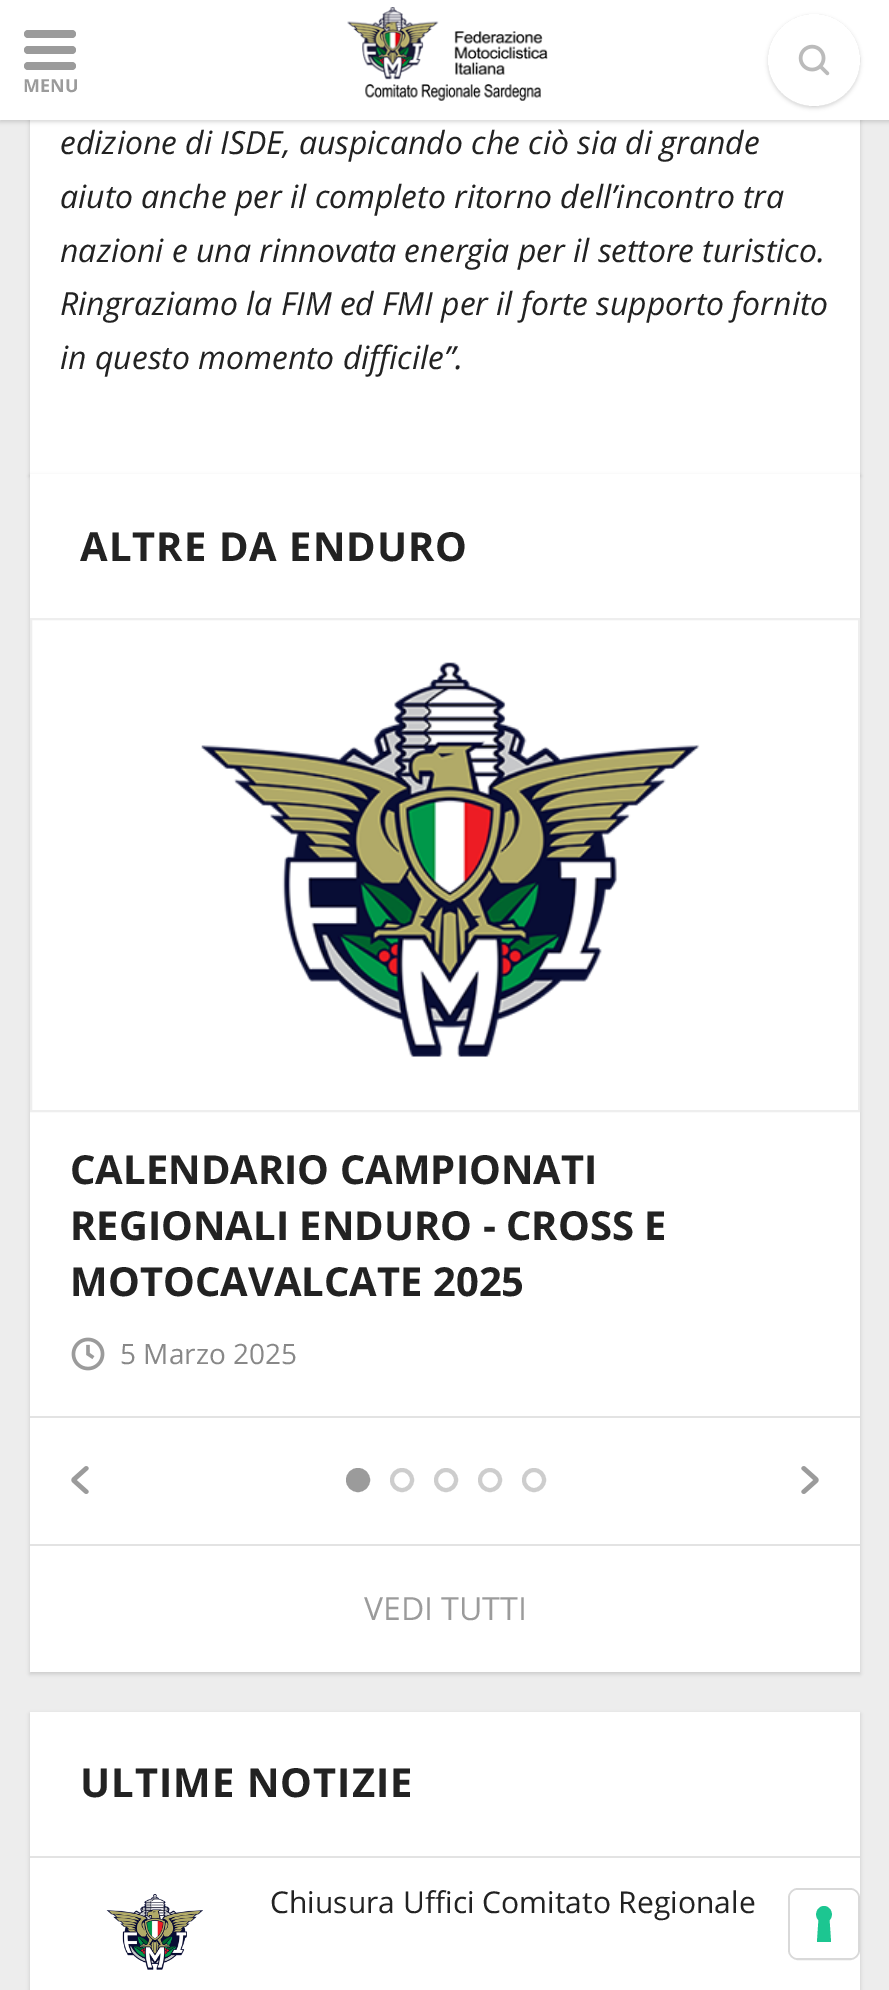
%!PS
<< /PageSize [889 1990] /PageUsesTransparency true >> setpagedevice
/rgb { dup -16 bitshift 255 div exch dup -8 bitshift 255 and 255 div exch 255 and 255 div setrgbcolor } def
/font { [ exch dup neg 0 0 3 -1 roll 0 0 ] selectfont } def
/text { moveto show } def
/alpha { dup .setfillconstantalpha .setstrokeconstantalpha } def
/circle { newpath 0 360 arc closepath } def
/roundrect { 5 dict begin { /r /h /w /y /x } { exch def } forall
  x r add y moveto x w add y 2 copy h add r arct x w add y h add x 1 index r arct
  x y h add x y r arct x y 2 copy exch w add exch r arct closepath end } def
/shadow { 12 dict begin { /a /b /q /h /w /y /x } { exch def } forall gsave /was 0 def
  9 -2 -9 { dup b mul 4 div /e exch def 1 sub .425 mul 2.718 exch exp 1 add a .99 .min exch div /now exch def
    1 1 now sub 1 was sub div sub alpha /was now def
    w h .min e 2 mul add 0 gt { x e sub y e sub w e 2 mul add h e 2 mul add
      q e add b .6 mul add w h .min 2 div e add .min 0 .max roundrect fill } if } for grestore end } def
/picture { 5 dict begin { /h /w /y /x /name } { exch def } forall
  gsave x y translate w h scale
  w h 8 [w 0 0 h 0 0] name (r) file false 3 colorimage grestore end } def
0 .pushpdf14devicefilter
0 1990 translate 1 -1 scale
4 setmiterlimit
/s1 { /OpenSans-Bold 18 font 16#9B9B9B rgb } def
/s2 { /OpenSans-Italic 32 font 16#222222 rgb } def
/s3 { /OpenSans-Bold 40 font 16#222222 rgb } def
/s4 { /OpenSans-Regular 28 font 16#888888 rgb } def
/s5 { /OpenSans-Regular 32 font 16#9B9B9B rgb } def
/s6 { /OpenSans-Regular 30 font 16#222222 rgb } def
16#EDEDED rgb
0 0 889 1990 rectfill
16#000000 rgb
30 -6 830 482 0 2 0.15 shadow
16#FFFFFF rgb
30 120 830 354 rectfill
16#000000 rgb
0 2 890 120 0 2 0.15 shadow
16#FFFFFF rgb
0 0 889 120 rectfill
16#9B9B9B rgb
24 46 52 8 4 roundrect fill
24 30 52 8 4 roundrect fill
24 62 52 8 4 roundrect fill
s1
(MENU) 23 92 text
(pic1.raw) 347 7 201 94 picture
16#E3E3E3 rgb
2 setlinewidth
814 60 45 circle stroke
16#000000 rgb
768 16 92 92 46 2 0.15 shadow
16#FFFFFF rgb
814 60 46 circle fill
(pic2.raw) 798 44 32 32 picture
s2
(edizione di ISDE, auspicando che ciò sia di grande) 60 154 text
(aiuto anche per il completo ritorno dell’incontro tra) 60 208 text
(nazioni e una rinnovata energia per il settore turistico.) 60 262 text
(Ringraziamo la FIM ed FMI per il forte supporto fornito) 60 315 text
(in questo momento difficile”.) 60 369 text
16#000000 rgb
30 476 830 1198 0 2 0.15 shadow
16#FFFFFF rgb
30 474 830 1198 rectfill
/OpenSans-Bold 40 font
16#222222 rgb
80 561 moveto 1 0 (ALTRE DA ENDURO) ashow
16#EEEEEE rgb
31 619 828 492 rectstroke
(pic3.raw) 201 662 499 395 picture
s3
(CALENDARIO CAMPIONATI) 70 1184 text
(REGIONALI ENDURO - CROSS E) 70 1240 text
(MOTOCAVALCATE 2025) 70 1296 text
(pic4.raw) 71 1337 34 34 picture
s4
(5 Marzo 2025) 120 1364 text
16#E3E3E3 rgb
30 1416 830 2 rectfill
16#9B9B9B rgb
358 1480 10 circle gsave fill grestore
4 setlinewidth
stroke
16#CDCDCD rgb
402 1480 10 circle stroke
446 1480 10 circle stroke
490 1480 10 circle stroke
534 1480 10 circle stroke
(pic5.raw) 71 1466 18 28 picture
(pic6.raw) 801 1466 18 28 picture
16#E3E3E3 rgb
30 1544 830 2 rectfill
s5
(VEDI TUTTI) 364 1620 text
16#000000 rgb
30 1714 830 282 0 2 0.15 shadow
16#FFFFFF rgb
30 1712 830 278 rectfill
/OpenSans-Bold 40 font
16#222222 rgb
80 1797 moveto 1 0 (ULTIME NOTIZIE) ashow
16#E3E3E3 rgb
30 1856 830 2 rectfill
(pic7.raw) 106 1894 97 76 picture
s6
(Chiusura Uffici Comitato Regionale) 270 1913 text
16#D9D9D9 rgb
2 setlinewidth
789 1889 70 70 9 roundrect stroke
16#FFFFFF rgb
790 1890 68 68 8 roundrect fill
16#1CC691 rgb
824 1906 moveto 831 1906 834.5 1915.5 829.5 1920 curveto 831 1942 lineto 817 1942 lineto 818.5 1920 lineto 813.5 1915.5 817 1906 824 1906 curveto closepath eofill
.poppdf14devicefilter showpage
